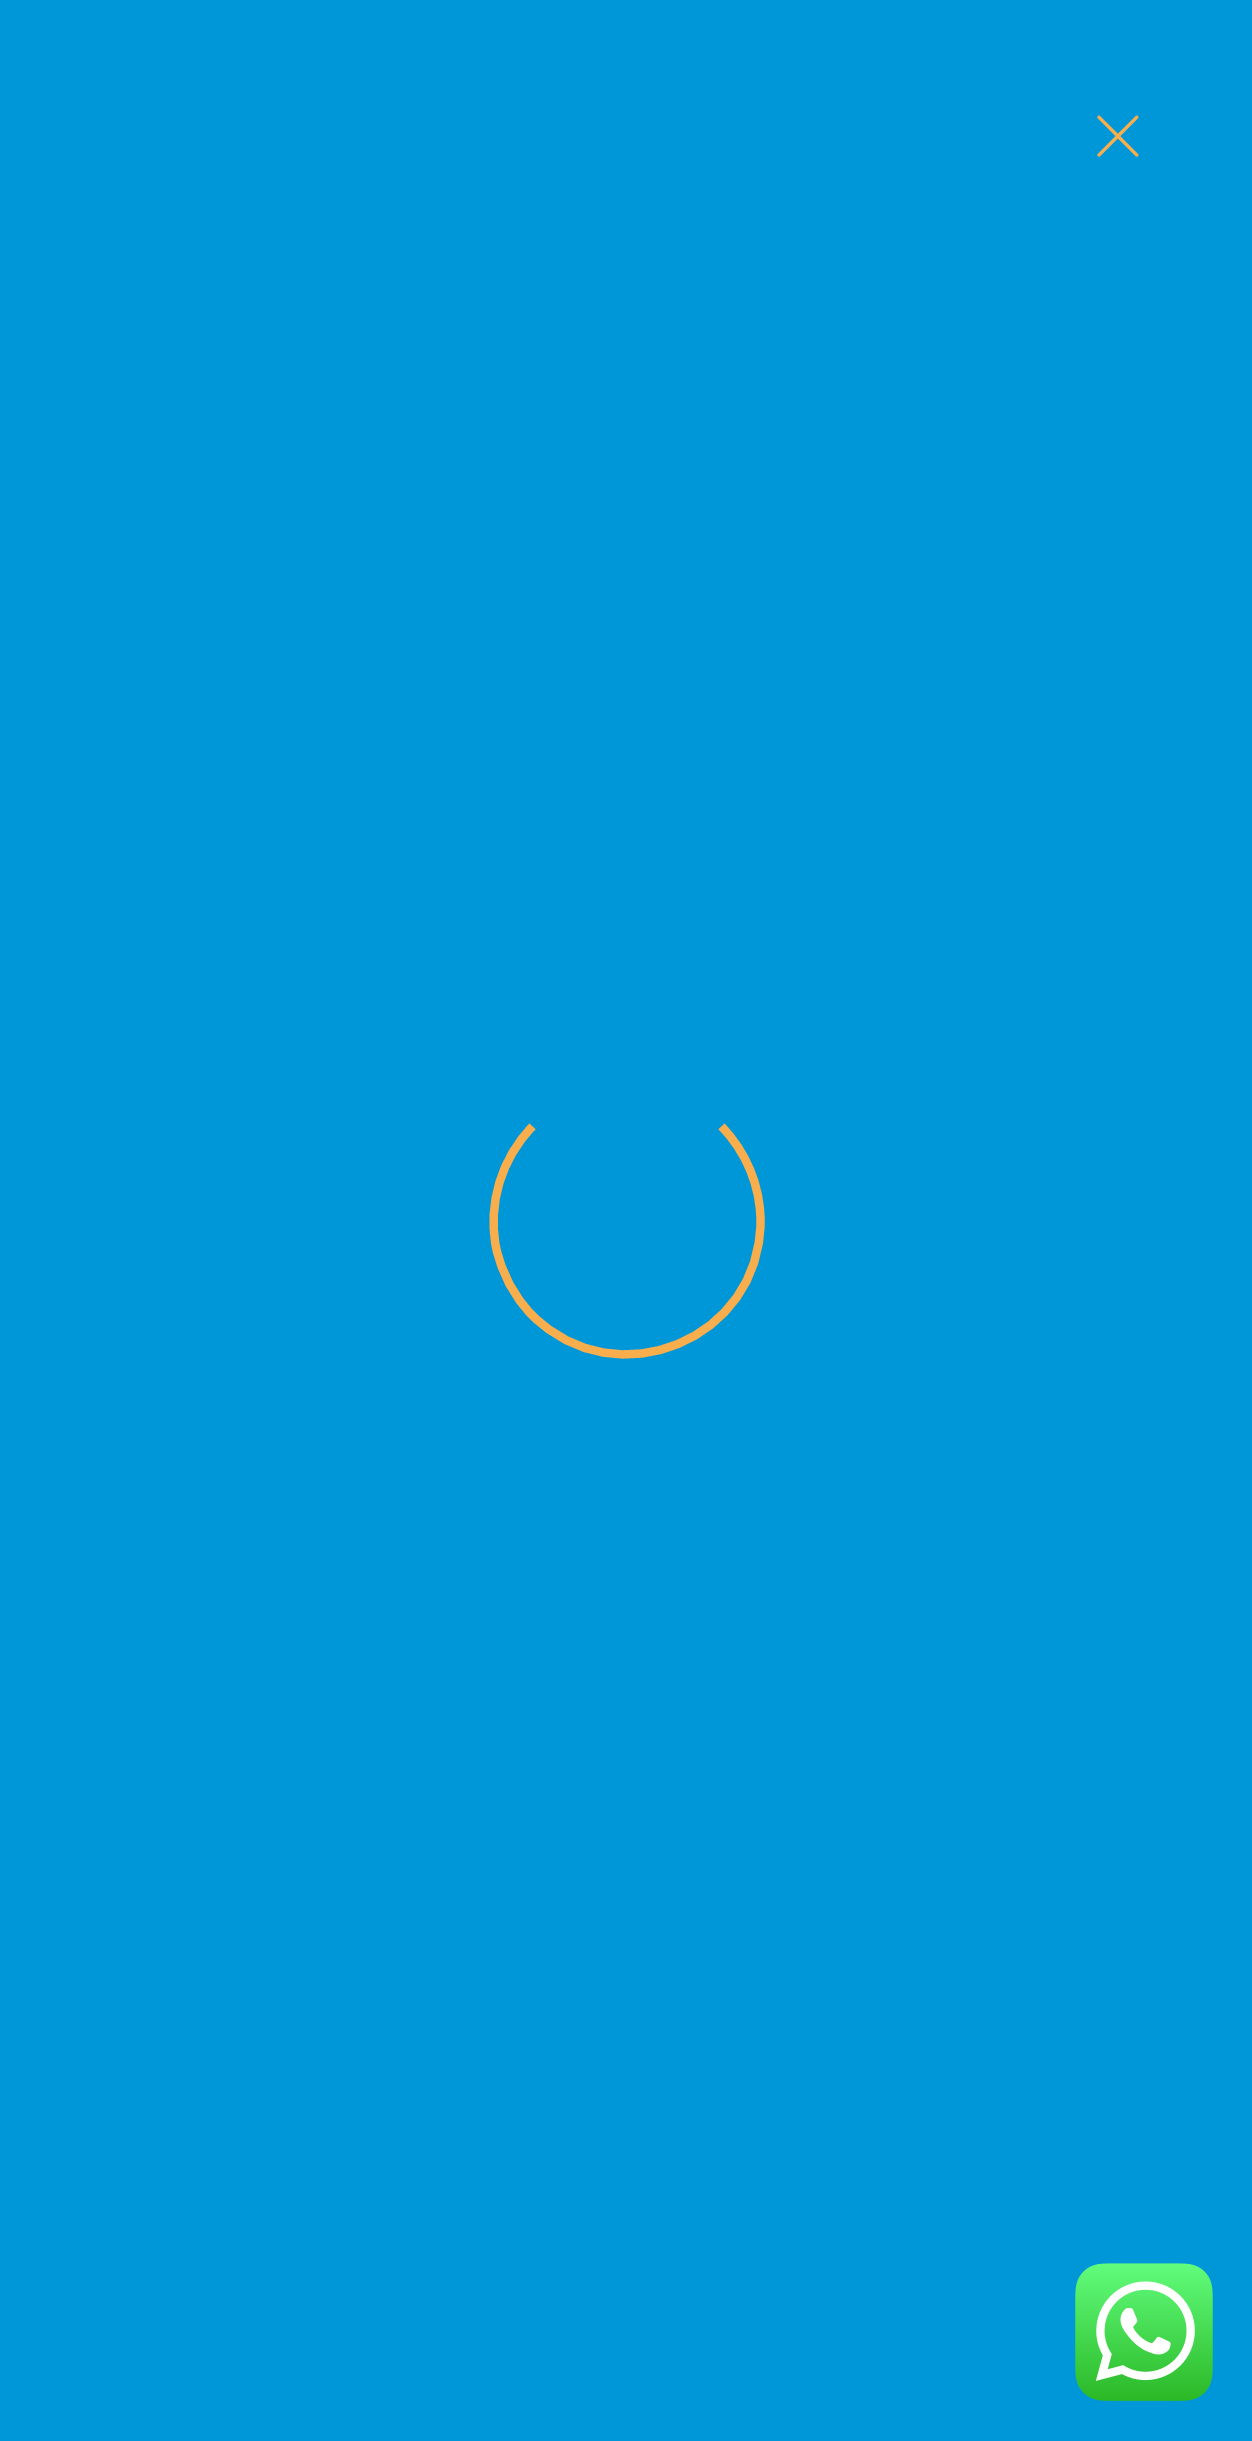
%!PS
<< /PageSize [1252 2441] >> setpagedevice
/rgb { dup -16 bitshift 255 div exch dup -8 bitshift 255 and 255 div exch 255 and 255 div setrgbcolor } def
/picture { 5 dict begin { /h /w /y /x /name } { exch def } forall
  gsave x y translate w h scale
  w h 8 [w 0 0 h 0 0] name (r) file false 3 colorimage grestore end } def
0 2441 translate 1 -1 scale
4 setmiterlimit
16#0097D8 rgb
0 0 1252 2441 rectfill
(pic1.raw) 1097 115 42 42 picture
16#F8AE4C rgb
8.2 setlinewidth
721.5 1126.5 moveto 746 1151.5 760.5 1186 760.5 1221 curveto 760.5 1339.5 616.5 1399 532.5 1315.5 curveto 514 1297 501.5 1273 496 1247 curveto 487.5 1204 501.5 1158 532.5 1126.5 curveto stroke
(pic2.raw) 1075 2263 138 138 picture
showpage
